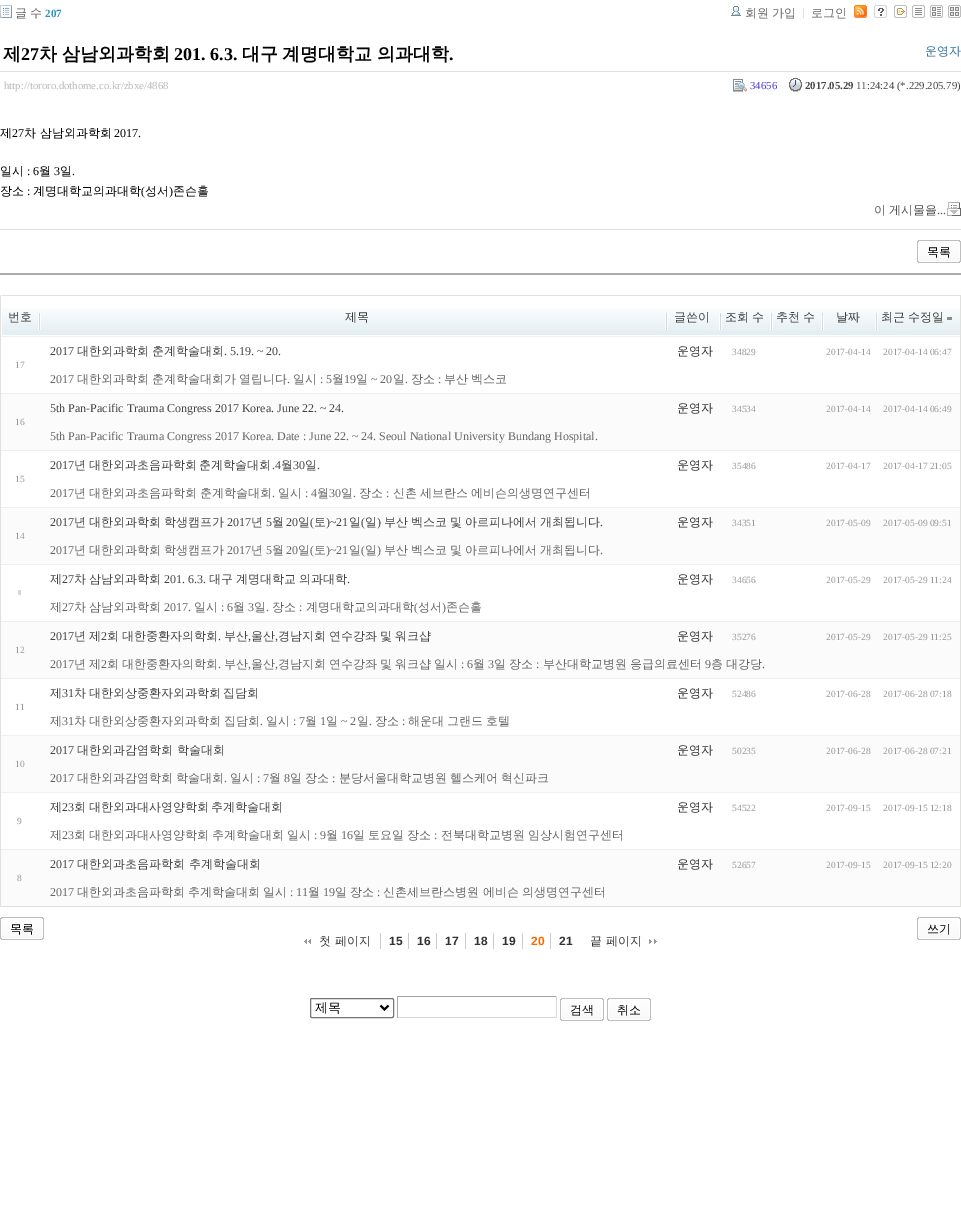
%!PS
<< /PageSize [961 1210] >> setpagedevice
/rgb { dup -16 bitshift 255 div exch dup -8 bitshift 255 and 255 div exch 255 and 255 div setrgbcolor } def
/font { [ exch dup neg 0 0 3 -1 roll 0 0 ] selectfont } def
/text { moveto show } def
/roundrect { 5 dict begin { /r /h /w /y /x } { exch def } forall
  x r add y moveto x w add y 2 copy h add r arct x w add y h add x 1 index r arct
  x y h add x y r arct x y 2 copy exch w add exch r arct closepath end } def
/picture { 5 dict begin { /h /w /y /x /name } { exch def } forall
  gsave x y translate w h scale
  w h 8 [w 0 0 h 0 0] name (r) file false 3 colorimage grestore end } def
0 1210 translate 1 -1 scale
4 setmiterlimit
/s1 { /LiberationSerif-Bold 11 font 16#2895C0 rgb } def
/s2 { /WenQuanYiZenHei-Medium 12 font 16#666666 rgb } def
/s3 { /WenQuanYiZenHei-Bold 18 font 16#000000 rgb } def
/s4 { /LiberationSerif-Bold 18 font 16#000000 rgb } def
/s5 { /WenQuanYiZenHei-Medium 12 font 16#3074A5 rgb } def
/s6 { /LiberationSerif-Regular 10.75 font 16#BBBBBB rgb } def
/s7 { /LiberationSerif-Regular 10.75 font 16#4A3FD7 rgb } def
/s8 { /LiberationSerif-Bold 10.75 font 16#444444 rgb } def
/s9 { /LiberationSerif-Regular 10.75 font 16#444444 rgb } def
/s10 { /WenQuanYiZenHei-Medium 12 font 16#000000 rgb } def
/s11 { /LiberationSerif-Regular 12 font 16#000000 rgb } def
/s12 { /LiberationSerif-Regular 12 font 16#555555 rgb } def
/s13 { /WenQuanYiZenHei-Medium 12 font 16#3E3F3E rgb } def
/s14 { /LiberationSerif-Regular 12 font 16#444444 rgb } def
/s15 { /WenQuanYiZenHei-Medium 12 font 16#444444 rgb } def
/s16 { /WenQuanYiZenHei-Medium 12 font 16#333333 rgb } def
/s17 { /LiberationSerif-Regular 9.5 font 16#999999 rgb } def
/s18 { /LiberationSerif-Regular 12 font 16#666666 rgb } def
/s19 { /LiberationSans-Bold 12 font 16#333333 rgb } def
/s20 { /LiberationSans-Bold 12 font 16#FF6600 rgb } def
/s21 { /WenQuanYiZenHei-Medium 13 font 16#000000 rgb } def
16#FFFFFF rgb
0 0 961 1210 rectfill
(pic1.raw) 0 5 12 13 picture
/WenQuanYiZenHei-Medium 12 font
16#666666 rgb
15 17 moveto -1 0 32 (글 수) widthshow
s1
(207) 45 17 text
(pic2.raw) 731 6 10 10 picture
/WenQuanYiZenHei-Medium 12 font
16#666666 rgb
745 17 moveto -1 0 32 (회원 가입) widthshow
(로그인) 811 17 text
16#E0E0E0 rgb
803 8 1 10 rectfill
(pic3.raw) 854 5 13 13 picture
(pic4.raw) 874 5 13 13 picture
(pic5.raw) 894 5 13 13 picture
(pic6.raw) 912 5 13 13 picture
(pic7.raw) 930 5 13 13 picture
(pic8.raw) 948 5 13 13 picture
16#AAAAAA rgb
0 273 961 2 rectfill
16#E0E1DB rgb
0 71 961 1 rectfill
s3
(제) 3 60 text
s4
(27) 21 60 text
s3
(차) 39 60 text
(삼남외과학회) 62 60 text
s4
(201. 6.3.) 174 60 text
s3
(대구) 242 60 text
(계명대학교) 282 60 text
(의과대학) 377 60 text
s4
(.) 449 60 text
s5
(운영자) 925 55 text
s6
(http://tororo.dothome.co.kr/zbxe/4868) 4 89 text
(pic9.raw) 733 79 14 13 picture
s7
(34656) 750 89 text
(pic10.raw) 789 78 13 14 picture
s8
(2017.05.29) 805 89 text
s9
(11:24:24 \(*.229.205.79\)) 856 89 text
s10
(제) 0 137 text
s11
(27) 12 137 text
s10
(차 삼남외과학회) 24 137 text
s11
(2017.) 114 137 text
s10
(일시) 0 175 text
s11
(: 6) 27 175 text
s10
(월) 39 175 text
s11
(3) 54 175 text
s10
(일) 60 175 text
s11
(.) 72 175 text
s10
(장소) 0 195 text
s11
(:) 27 195 text
s10
(계명대학교의과대학) 33 195 text
s11
(\() 141 195 text
s10
(성서) 145 195 text
s11
(\)) 169 195 text
s10
(존슨홀) 173 195 text
(pic11.raw) 947 202 14 14 picture
16#555555 rgb
874 214 moveto -1 0 32 (이 게시물을) widthshow
s12
(...) 937 214 text
16#DDDDDD rgb
0 229 961 1 rectfill
(pic12.raw) 917 240 42 23 picture
(pic13.raw) 959 240 2 23 picture
s10
(목록) 927 256 text
16#E0E1DB rgb
960 295 1 612 rectfill
0 906 961 1 rectfill
0 295 1 612 rectfill
(pic14.raw) 2 308 36 27 picture
1 295 959 1 rectfill
16#FFFFFF rgb
1 295 1 1 rectfill
s13
(번호) 8 321 text
(pic15.raw) 38 308 627 27 picture
(제목) 345 321 text
(pic16.raw) 665 308 54 27 picture
(글쓴이) 674 321 text
(pic17.raw) 719 308 51 27 picture
725 321 moveto -1 0 32 (조회 수) widthshow
(pic17.raw) 770 308 51 27 picture
776 321 moveto -1 0 32 (추천 수) widthshow
(pic16.raw) 821 308 54 27 picture
(날짜) 836 321 text
(pic18.raw) 875 308 85 27 picture
881 321 moveto -1 0 32 (최근 수정일) widthshow
16#8C8F86 rgb
947 317 5 3 rectfill
s14
(2017) 50 355 text
s15
(대한외과학회) 77 355 text
(춘계학술대회) 152 355 text
s14
(. 5.19. ~ 20.) 224 355 text
s16
(운영자) 677 355 text
s17
(34829) 732 355 text
(2017-04-14) 826 355 text
(2017-04-14 06:47) 883 355 text
16#EFF0ED rgb
1 336 959 1 rectfill
s17
(17) 15 368 text
s18
(2017) 50 383 text
s2
(대한외과학회) 77 383 text
(춘계학술대회가) 152 383 text
(열립니다) 239 383 text
s18
(.) 287 383 text
s2
(일시) 293 383 text
s18
(: 5) 320 383 text
s2
(월) 332 383 text
s18
(19) 344 383 text
s2
(일) 356 383 text
s18
(~ 20) 371 383 text
s2
(일) 393 383 text
s18
(.) 405 383 text
s2
(장소) 411 383 text
s18
(:) 438 383 text
s2
(부산) 444 383 text
(벡스코) 471 383 text
16#FBFBFB rgb
1 394 959 56 rectfill
s14
(5th Pan-Pacific Trauma Congress 2017 Korea. June 22. ~ 24.) 50 412 text
s16
(운영자) 677 412 text
s17
(34534) 732 412 text
(2017-04-14) 826 412 text
(2017-04-14 06:49) 883 412 text
16#EFF0ED rgb
1 393 959 1 rectfill
s17
(16) 15 425 text
s18
(5th Pan-Pacific Trauma Congress 2017 Korea. Date : June 22. ~ 24. Seoul National University Bundang Hospital.) 50 440 text
s14
(2017) 50 469 text
/WenQuanYiZenHei-Medium 12 font
74 469 moveto -1 0 32 (년 대한외과초음파학회 춘계학술대회) widthshow
s14
(.4) 272 469 text
s15
(월) 281 469 text
s14
(30) 293 469 text
s15
(일) 305 469 text
s14
(.) 317 469 text
s16
(운영자) 677 469 text
s17
(35486) 732 469 text
(2017-04-17) 826 469 text
(2017-04-17 21:05) 883 469 text
16#EFF0ED rgb
1 450 959 1 rectfill
s17
(15) 15 482 text
s18
(2017) 50 497 text
s2
(년) 74 497 text
(대한외과초음파학회) 89 497 text
(춘계학술대회) 200 497 text
s18
(.) 272 497 text
s2
(일시) 278 497 text
s18
(: 4) 305 497 text
s2
(월) 317 497 text
s18
(30) 329 497 text
s2
(일) 341 497 text
s18
(.) 353 497 text
s2
(장소) 359 497 text
s18
(:) 386 497 text
s2
(신촌) 393 497 text
(세브란스) 420 497 text
(에비슨의생명연구센터) 471 497 text
16#FBFBFB rgb
1 508 959 56 rectfill
s14
(2017) 50 526 text
/WenQuanYiZenHei-Medium 12 font
74 526 moveto -0.5 0 32 (년 대한외과학회 학생캠프가) widthshow
s14
(2017) 227 526 text
s15
(년) 251 526 text
s14
(5) 266 526 text
s15
(월) 272 526 text
s14
(20) 286 526 text
s15
(일) 298 526 text
s14
(\() 310 526 text
s15
(토) 314 526 text
s14
(\)~21) 326 526 text
s15
(일) 349 526 text
s14
(\() 361 526 text
s15
(일) 365 526 text
s14
(\)) 377 526 text
/WenQuanYiZenHei-Medium 12 font
384 526 moveto -0.5 0 32 (부산 벡스코 및 아르피나에서 개최됩니다) widthshow
s14
(.) 600 526 text
s16
(운영자) 677 526 text
s17
(34351) 732 526 text
(2017-05-09) 826 526 text
(2017-05-09 09:51) 883 526 text
16#EFF0ED rgb
1 507 959 1 rectfill
s17
(14) 15 539 text
s18
(2017) 50 554 text
/WenQuanYiZenHei-Medium 12 font
74 554 moveto -0.5 0 32 (년 대한외과학회 학생캠프가) widthshow
s18
(2017) 227 554 text
s2
(년) 251 554 text
s18
(5) 266 554 text
s2
(월) 272 554 text
s18
(20) 286 554 text
s2
(일) 298 554 text
s18
(\() 310 554 text
s2
(토) 314 554 text
s18
(\)~21) 326 554 text
s2
(일) 349 554 text
s18
(\() 361 554 text
s2
(일) 365 554 text
s18
(\)) 377 554 text
/WenQuanYiZenHei-Medium 12 font
384 554 moveto -0.5 0 32 (부산 벡스코 및 아르피나에서 개최됩니다) widthshow
s18
(.) 600 554 text
16#EFF0ED rgb
1 564 959 1 rectfill
16#D8D8D8 rgb
18 590 3 5 rectfill
s15
(제) 50 583 text
s14
(27) 62 583 text
s15
(차) 74 583 text
(삼남외과학회) 89 583 text
s14
(201. 6.3.) 164 583 text
s15
(대구) 209 583 text
(계명대학교) 236 583 text
(의과대학) 299 583 text
s14
(.) 347 583 text
s16
(운영자) 677 583 text
s17
(34656) 732 583 text
(2017-05-29) 826 583 text
(2017-05-29 11:24) 883 583 text
s2
(제) 50 611 text
s18
(27) 62 611 text
s2
(차) 74 611 text
(삼남외과학회) 89 611 text
s18
(2017.) 164 611 text
s2
(일시) 194 611 text
s18
(: 6) 221 611 text
s2
(월) 233 611 text
s18
(3) 248 611 text
s2
(일) 254 611 text
s18
(.) 266 611 text
s2
(장소) 272 611 text
s18
(:) 299 611 text
s2
(계명대학교의과대학) 306 611 text
s18
(\() 414 611 text
s2
(성서) 418 611 text
s18
(\)) 442 611 text
s2
(존슨홀) 446 611 text
16#FBFBFB rgb
1 622 959 56 rectfill
s14
(2017) 50 640 text
/WenQuanYiZenHei-Medium 12 font
74 640 moveto -0.5 0 32 (년 제) widthshow
s14
(2) 101 640 text
/WenQuanYiZenHei-Medium 12 font
107 640 moveto -0.5 0 32 (회 대한중환자의학회) widthshow
s14
(.) 218 640 text
s15
(부산) 224 640 text
s14
(,) 248 640 text
s15
(울산) 251 640 text
s14
(,) 275 640 text
/WenQuanYiZenHei-Medium 12 font
278 640 moveto -0.5 0 32 (경남지회 연수강좌 및 워크샵) widthshow
s16
(운영자) 677 640 text
s17
(35276) 732 640 text
(2017-05-29) 826 640 text
(2017-05-29 11:25) 883 640 text
16#EFF0ED rgb
1 621 959 1 rectfill
s17
(12) 15 653 text
s18
(2017) 50 668 text
s2
(년) 74 668 text
(제) 89 668 text
s18
(2) 101 668 text
s2
(회) 107 668 text
(대한중환자의학회) 122 668 text
s18
(.) 218 668 text
s2
(부산) 224 668 text
s18
(,) 248 668 text
s2
(울산) 251 668 text
s18
(,) 275 668 text
s2
(경남지회) 278 668 text
(연수강좌) 329 668 text
(및) 380 668 text
(워크샵) 395 668 text
(일시) 434 668 text
s18
(: 6) 461 668 text
s2
(월) 473 668 text
s18
(3) 488 668 text
s2
(일) 494 668 text
(장소) 509 668 text
s18
(:) 536 668 text
s2
(부산대학교병원) 543 668 text
(응급의료센터) 630 668 text
s18
(9) 705 668 text
s2
(층) 711 668 text
(대강당) 726 668 text
s18
(.) 762 668 text
s15
(제) 50 697 text
s14
(31) 62 697 text
/WenQuanYiZenHei-Medium 12 font
74 697 moveto -1 0 32 (차 대한외상중환자외과학회 집담회) widthshow
s16
(운영자) 677 697 text
s17
(52486) 732 697 text
(2017-06-28) 826 697 text
(2017-06-28 07:18) 883 697 text
16#EFF0ED rgb
1 678 959 1 rectfill
s17
(11) 15 710 text
s2
(제) 50 725 text
s18
(31) 62 725 text
s2
(차) 74 725 text
(대한외상중환자외과학회) 89 725 text
(집담회) 224 725 text
s18
(.) 260 725 text
s2
(일시) 266 725 text
s18
(: 7) 293 725 text
s2
(월) 305 725 text
s18
(1) 320 725 text
s2
(일) 326 725 text
s18
(~ 2) 341 725 text
s2
(일) 357 725 text
s18
(.) 369 725 text
s2
(장소) 375 725 text
s18
(:) 402 725 text
s2
(해운대) 408 725 text
(그랜드) 447 725 text
(호텔) 486 725 text
16#FBFBFB rgb
1 736 959 56 rectfill
s14
(2017) 50 754 text
s15
(대한외과감염학회 학술대회) 77 754 text
s16
(운영자) 677 754 text
s17
(50235) 732 754 text
(2017-06-28) 826 754 text
(2017-06-28 07:21) 883 754 text
16#EFF0ED rgb
1 735 959 1 rectfill
s17
(10) 15 767 text
s18
(2017) 50 782 text
s2
(대한외과감염학회) 77 782 text
(학술대회) 176 782 text
s18
(.) 224 782 text
s2
(일시) 230 782 text
s18
(: 7) 257 782 text
s2
(월) 269 782 text
s18
(8) 284 782 text
s2
(일) 290 782 text
(장소) 305 782 text
s18
(:) 332 782 text
s2
(분당서울대학교병원) 339 782 text
(헬스케어) 450 782 text
(혁신파크) 501 782 text
s15
(제) 50 811 text
s14
(23) 62 811 text
/WenQuanYiZenHei-Medium 12 font
74 811 moveto -1 0 32 (회 대한외과대사영양학회 추계학술대회) widthshow
s16
(운영자) 677 811 text
s17
(54522) 732 811 text
(2017-09-15) 826 811 text
(2017-09-15 12:18) 883 811 text
16#EFF0ED rgb
1 792 959 1 rectfill
s17
(9) 17 824 text
s2
(제) 50 839 text
s18
(23) 62 839 text
s2
(회) 74 839 text
(대한외과대사영양학회) 89 839 text
(추계학술대회) 212 839 text
(일시) 287 839 text
s18
(: 9) 314 839 text
s2
(월) 326 839 text
s18
(16) 341 839 text
s2
(일) 353 839 text
(토요일) 368 839 text
(장소) 407 839 text
s18
(:) 434 839 text
s2
(전북대학교병원) 441 839 text
(임상시험연구센터) 528 839 text
16#FBFBFB rgb
1 850 959 56 rectfill
s14
(2017) 50 868 text
s15
(대한외과초음파학회 추계학술대회) 77 868 text
s16
(운영자) 677 868 text
s17
(52657) 732 868 text
(2017-09-15) 826 868 text
(2017-09-15 12:20) 883 868 text
16#EFF0ED rgb
1 849 959 1 rectfill
s17
(8) 17 881 text
s18
(2017) 50 896 text
s2
(대한외과초음파학회) 77 896 text
(추계학술대회) 188 896 text
(일시) 263 896 text
s18
(: 11) 290 896 text
s2
(월) 308 896 text
s18
(19) 323 896 text
s2
(일) 335 896 text
(장소) 350 896 text
s18
(:) 377 896 text
s2
(신촌세브란스병원 에비슨 의생명연구센터) 383 896 text
(pic12.raw) 0 917 42 23 picture
(pic13.raw) 42 917 2 23 picture
s10
(목록) 10 933 text
(pic12.raw) 917 917 42 23 picture
(pic13.raw) 959 917 2 23 picture
(쓰기) 927 933 text
(pic19.raw) 304 939 7 5 picture
s16
(첫 페이지) 319 945 text
16#CCCCCC rgb
380 933 1 16 rectfill
s19
(15) 389 945 text
16#CCCCCC rgb
408 933 1 16 rectfill
s19
(16) 417 945 text
16#CCCCCC rgb
436 933 1 16 rectfill
s19
(17) 445 945 text
16#CCCCCC rgb
465 933 1 16 rectfill
s19
(18) 474 945 text
16#CCCCCC rgb
493 933 1 16 rectfill
s19
(19) 502 945 text
16#CCCCCC rgb
522 933 1 16 rectfill
s20
(20) 531 945 text
16#CCCCCC rgb
550 933 1 16 rectfill
s19
(21) 559 945 text
(pic20.raw) 649 939 8 5 picture
s16
(끝 페이지) 590 945 text
16#767676 rgb
310.5 998.5 83 19 1.5 roundrect stroke
16#000000 rgb
2 setlinewidth
380.5 1005.5 moveto 384.5 1009.5 lineto 388.5 1005.5 lineto stroke
s21
(제목) 315 1012 text
16#A6A6A6 rgb
397 996 160 1 rectfill
16#D8D8D8 rgb
556 996 1 22 rectfill
397 1017 160 1 rectfill
16#A6A6A6 rgb
397 996 1 22 rectfill
(pic12.raw) 560 998 42 23 picture
(pic13.raw) 602 998 2 23 picture
s10
(검색) 570 1014 text
(pic12.raw) 607 998 42 23 picture
(pic13.raw) 649 998 2 23 picture
(취소) 617 1014 text
showpage
